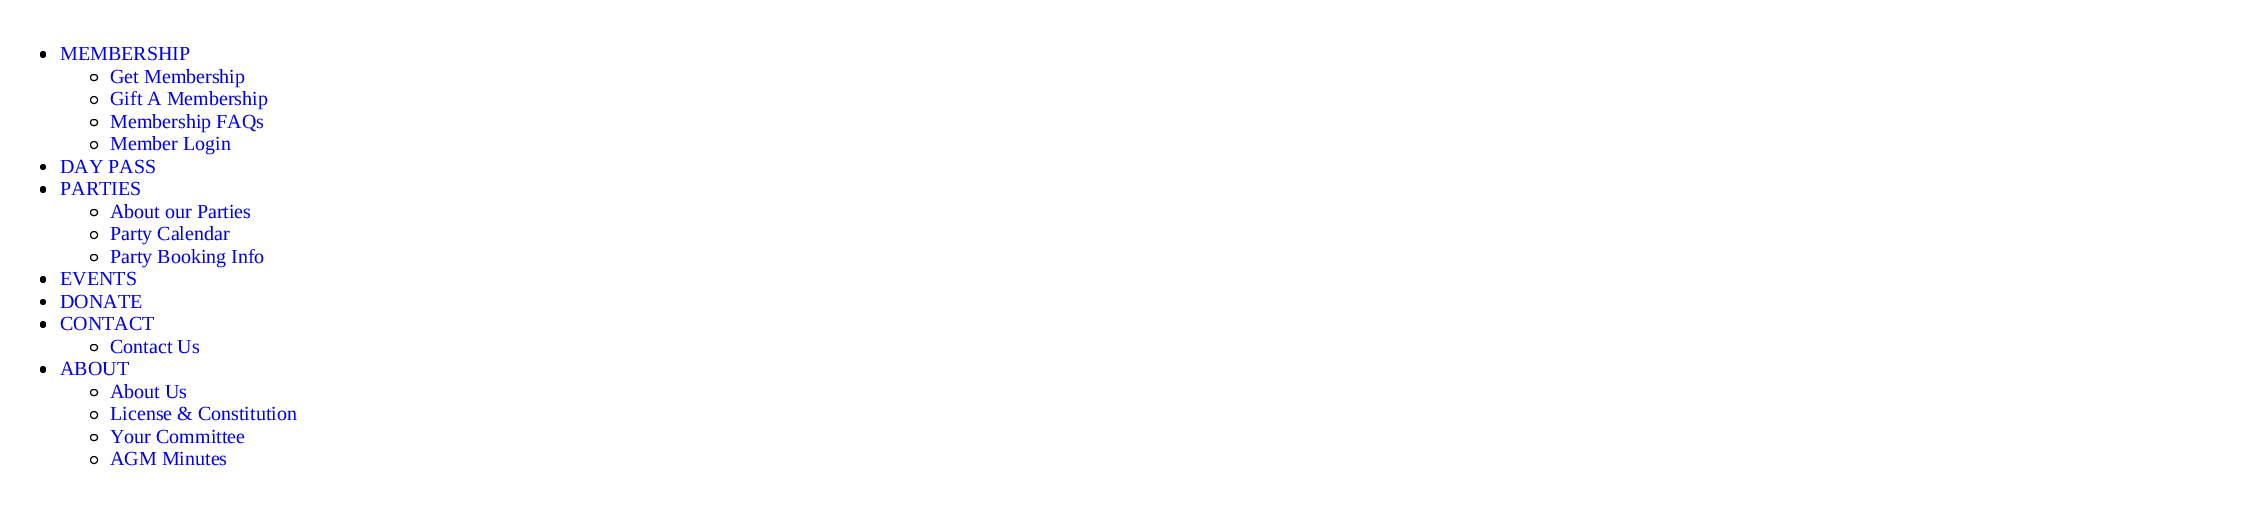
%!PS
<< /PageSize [2257 528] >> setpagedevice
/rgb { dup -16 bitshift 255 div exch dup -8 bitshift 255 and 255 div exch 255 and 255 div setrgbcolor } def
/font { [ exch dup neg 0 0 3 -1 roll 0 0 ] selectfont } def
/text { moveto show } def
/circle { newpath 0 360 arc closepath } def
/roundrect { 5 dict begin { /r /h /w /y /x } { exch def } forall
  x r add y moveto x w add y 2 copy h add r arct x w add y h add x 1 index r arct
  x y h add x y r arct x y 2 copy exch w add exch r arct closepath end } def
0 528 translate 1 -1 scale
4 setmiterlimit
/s1 { /LiberationSerif-Regular 20 font 16#0000EE rgb } def
16#FFFFFF rgb
0 0 2257 528 rectfill
16#000000 rgb
40 51 6 7 3 roundrect fill
s1
(MEMBERSHIP) 60 60 text
16#000000 rgb
90.5 74.5 7 6 3 roundrect stroke
s1
(Get Membership) 110 83 text
16#000000 rgb
94 100 3.5 circle stroke
s1
(Gift A Membership) 110 105 text
16#000000 rgb
90.5 119.5 7 6 3 roundrect stroke
s1
(Membership FAQs) 110 128 text
16#000000 rgb
94 145 3.5 circle stroke
s1
(Member Login) 110 150 text
16#000000 rgb
43 167 3 circle fill
s1
(DAY PASS) 60 173 text
16#000000 rgb
40 186 6 7 3 roundrect fill
s1
(PARTIES) 60 195 text
16#000000 rgb
90.5 209.5 7 6 3 roundrect stroke
s1
(About our Parties) 110 218 text
16#000000 rgb
94 235 3.5 circle stroke
s1
(Party Calendar) 110 240 text
16#000000 rgb
90.5 254.5 7 6 3 roundrect stroke
s1
(Party Booking Info) 110 263 text
16#000000 rgb
40 276 6 7 3 roundrect fill
s1
(EVENTS) 60 285 text
16#000000 rgb
43 302 3 circle fill
s1
(DONATE) 60 308 text
16#000000 rgb
40 321 6 7 3 roundrect fill
s1
(CONTACT) 60 330 text
16#000000 rgb
90.5 344.5 7 6 3 roundrect stroke
s1
(Contact Us) 110 353 text
16#000000 rgb
40 366 6 7 3 roundrect fill
s1
(ABOUT) 60 375 text
16#000000 rgb
90.5 389.5 7 6 3 roundrect stroke
s1
(About Us) 110 398 text
16#000000 rgb
94 415 3.5 circle stroke
s1
(License & Constitution) 110 420 text
16#000000 rgb
90.5 434.5 7 6 3 roundrect stroke
s1
(Your Committee) 110 443 text
16#000000 rgb
94 460 3.5 circle stroke
s1
(AGM Minutes) 110 465 text
showpage
